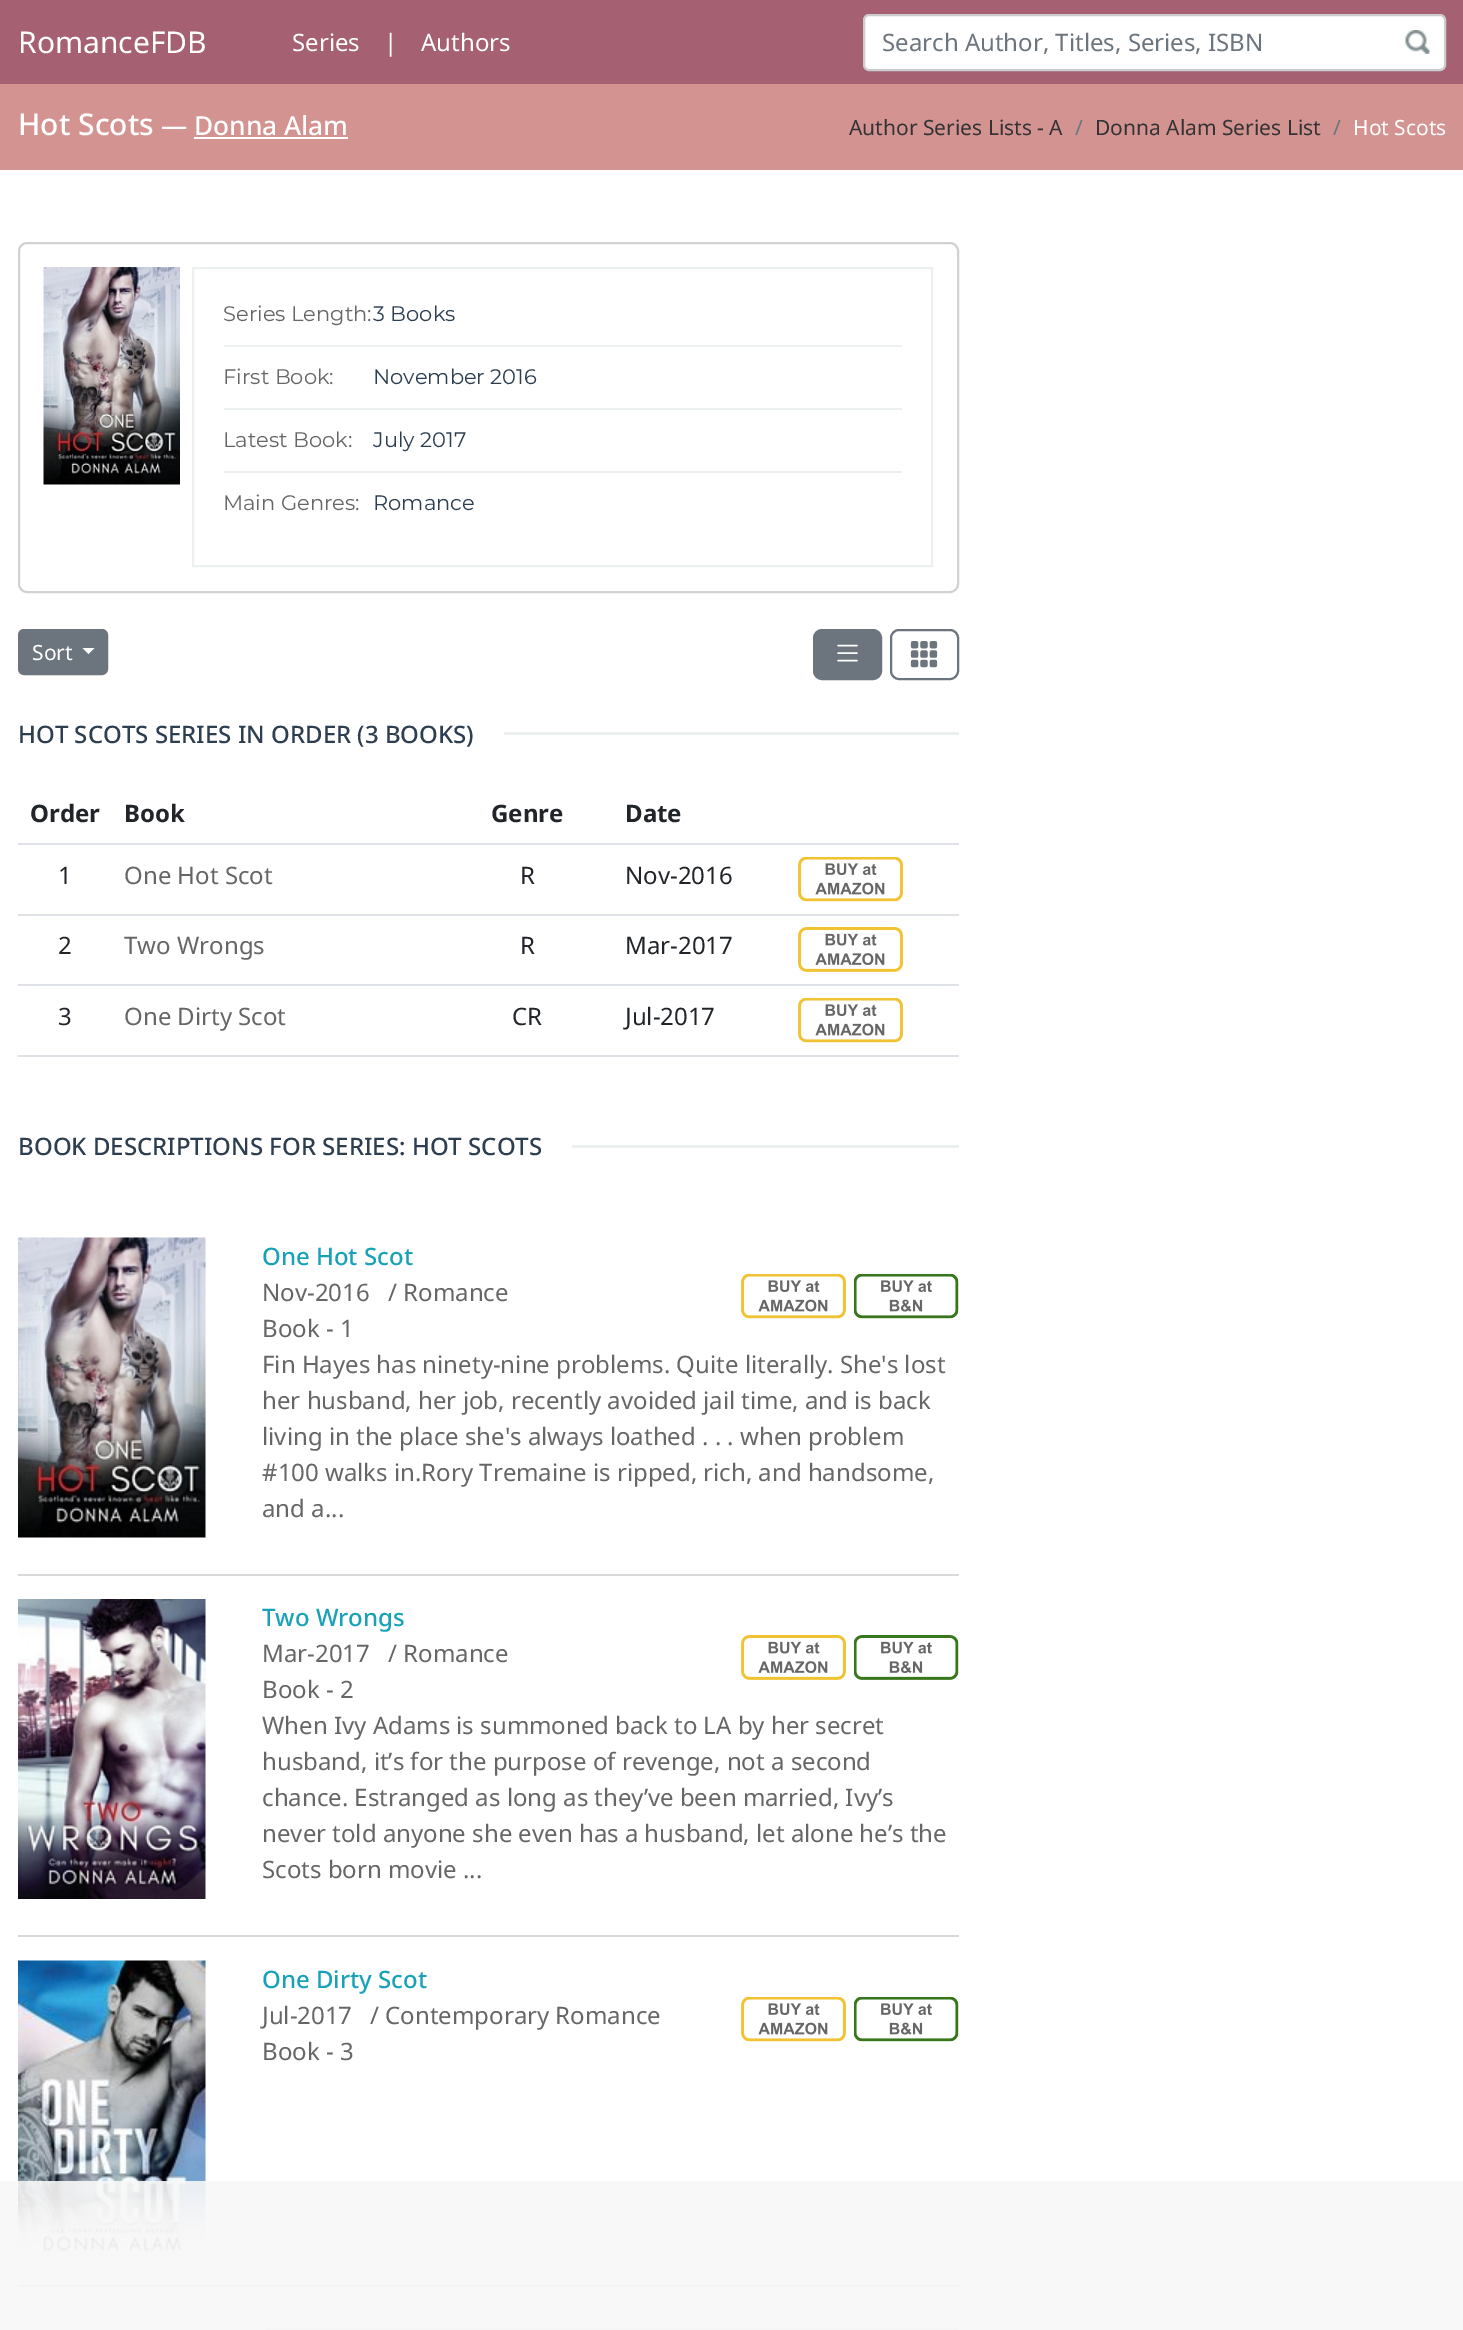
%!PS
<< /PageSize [1463 2330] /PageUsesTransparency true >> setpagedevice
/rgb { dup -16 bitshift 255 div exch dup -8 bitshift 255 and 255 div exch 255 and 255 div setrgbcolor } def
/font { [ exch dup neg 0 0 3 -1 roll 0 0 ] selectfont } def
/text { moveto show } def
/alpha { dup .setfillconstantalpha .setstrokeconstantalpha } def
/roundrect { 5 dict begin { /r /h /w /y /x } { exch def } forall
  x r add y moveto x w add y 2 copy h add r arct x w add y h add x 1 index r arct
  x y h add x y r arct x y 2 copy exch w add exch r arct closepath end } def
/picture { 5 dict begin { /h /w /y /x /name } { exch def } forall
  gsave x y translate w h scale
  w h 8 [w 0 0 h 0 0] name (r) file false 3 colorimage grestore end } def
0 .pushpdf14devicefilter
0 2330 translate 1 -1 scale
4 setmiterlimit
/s1 { /NotoSans-Regular 30 font 16#FFFFFF rgb } def
/s2 { /NotoSans-Regular 24 font 16#FFFFFF rgb } def
/s3 { /NotoSans-Regular 24 font 16#6C757D rgb } def
/s4 { /NotoSans-Medium 30 font 16#FFFFFF rgb } def
/s5 { /NotoSans-Medium 26.25 font 16#FFFFFF rgb } def
/s6 { /NotoSans-Regular 21 font 16#333333 rgb } def
/s7 { /NotoSans-Regular 21 font 16#6C757D rgb } def
/s8 { /NotoSans-Regular 21 font 16#FFFFFF rgb } def
/s9 { /Montserrat-Regular 21 font 16#666666 rgb } def
/s10 { /Montserrat-Regular 21 font 16#2C3E50 rgb } def
/s11 { /NotoSans-Medium 24 font 16#2C3E50 rgb } def
/s12 { /NotoSans-Bold 24 font 16#212529 rgb } def
/s13 { /NotoSans-Regular 24 font 16#212529 rgb } def
/s14 { /NotoSans-Regular 24 font 16#666666 rgb } def
/s15 { /NotoSans-Medium 24 font 16#17A2B8 rgb } def
16#FFFFFF rgb
0 0 1463 2330 rectfill
16#A56072 rgb
0 0 1463 84 rectfill
s1
(RomanceFDB) 18 53 text
s2
(Series) 292 51 text
(|) 384 51 text
(Authors) 421 51 text
864 15 581 54 5 roundrect fill
(pic1.raw) 1405 30 25 24 picture
16#CCCCCC rgb
2 setlinewidth
864 15 581 55 5 roundrect stroke
s3
(Search Author, Titles, Series, ISBN) 882 51 text
16#D39391 rgb
0 84 1463 86 rectfill
s4
(Hot Scots) 18 135 text
s5
(— Donna Alam) 161 135 text
194 137 154 2 rectfill
s6
(Author Series Lists - A) 849 135 text
s7
(/) 1075 135 text
s6
(Donna Alam Series List) 1095 135 text
s7
(/) 1333 135 text
s8
(Hot Scots) 1353 135 text
16#D2D2D2 rgb
19 243 939 349 8 roundrect stroke
(pic2.raw) 43 267 137 218 picture
16#ECF0F1 rgb
193 268 739 298 rectstroke
224 345 678 2 rectfill
s9
(Series Length:) 223 321 text
s10
(3 Books) 373 321 text
16#ECF0F1 rgb
224 408 678 2 rectfill
s9
(First Book:) 223 384 text
s10
(November 2016) 373 384 text
16#ECF0F1 rgb
224 471 678 2 rectfill
s9
(Latest Book:) 223 447 text
s10
(July 2017) 373 447 text
s9
(Main Genres:) 223 510 text
s10
(Romance) 373 510 text
16#6C757D rgb
19 630 88 44 5 roundrect gsave fill grestore
stroke
s8
(Sort) 32 660 text
82.5 648 moveto 94.5 648 lineto 88.5 654 lineto closepath fill
16#6C757D rgb
814 630 67 49 8 roundrect gsave fill grestore
stroke
(pic3.raw) 837 644 21 18 picture
891 630 67 49 8 roundrect stroke
(pic4.raw) 910 641 28 27 picture
s11
(HOT SCOTS SERIES IN ORDER \(3 BOOKS\)) 18 743 text
16#ECF0F1 rgb
504 732 455 3 rectfill
s12
(Order) 30 822 text
(Book) 124 822 text
(Genre) 491 822 text
(Date) 625 822 text
16#DEE2E6 rgb
18 843 941 2 rectfill
18 914 941 2 rectfill
(pic5.raw) 798 857 105 45 picture
s13
(1) 58 884 text
s14
(One Hot Scot) 124 884 text
s13
(R) 520 884 text
(Nov-2016) 625 884 text
16#DEE2E6 rgb
18 984 941 2 rectfill
(pic6.raw) 798 927 105 45 picture
s13
(2) 58 954 text
s14
(Two Wrongs) 124 954 text
s13
(R) 520 954 text
(Mar-2017) 625 954 text
16#DEE2E6 rgb
18 1055 941 2 rectfill
(pic5.raw) 798 998 105 45 picture
s13
(3) 58 1025 text
s14
(One Dirty Scot) 124 1025 text
s13
(CR) 512 1025 text
(Jul-2017) 625 1025 text
s11
(BOOK DESCRIPTIONS FOR SERIES: HOT SCOTS) 18 1155 text
16#ECF0F1 rgb
572 1145 387 3 rectfill
(pic7.raw) 18 1237 188 301 picture
s15
(One Hot Scot) 262 1265 text
s14
(Nov-2016) 262 1301 text
(/ Romance) 388 1301 text
(pic5.raw) 741 1274 105 45 picture
(pic8.raw) 854 1274 105 45 picture
(Book - 1) 262 1337 text
(Fin Hayes has ninety-nine problems. Quite literally. She's lost) 262 1373 text
(her husband, her job, recently avoided jail time, and is back) 262 1409 text
(living in the place she's always loathed . . . when problem) 262 1445 text
(#100 walks in.Rory Tremaine is ripped, rich, and handsome,) 262 1481 text
(and a...) 262 1517 text
16#D9D9D9 rgb
18 1574 941 2 rectfill
(pic9.raw) 18 1599 188 300 picture
s15
(Two Wrongs) 262 1626 text
s14
(Mar-2017) 262 1662 text
(/ Romance) 388 1662 text
(pic6.raw) 741 1635 105 45 picture
(pic10.raw) 854 1635 105 45 picture
(Book - 2) 262 1698 text
(When Ivy Adams is summoned back to LA by her secret) 262 1734 text
(husband, it’s for the purpose of revenge, not a second) 262 1770 text
(chance. Estranged as long as they’ve been married, Ivy’s) 262 1806 text
(never told anyone she even has a husband, let alone he’s the) 262 1842 text
(Scots born movie ...) 262 1878 text
16#D9D9D9 rgb
18 1935 941 2 rectfill
(pic11.raw) 18 1960 188 301 picture
s15
(One Dirty Scot) 262 1988 text
s14
(Jul-2017) 262 2024 text
(/ Contemporary Romance) 370 2024 text
(pic5.raw) 741 1997 105 45 picture
(pic8.raw) 854 1997 105 45 picture
(Book - 3) 262 2060 text
16#D9D9D9 rgb
18 2285 941 2 rectfill
16#ECF0F1 rgb
266 2327 693 3 rectfill
0.9 alpha
16#F7F7F7 rgb
0 2181 1463 149 rectfill
.poppdf14devicefilter showpage
